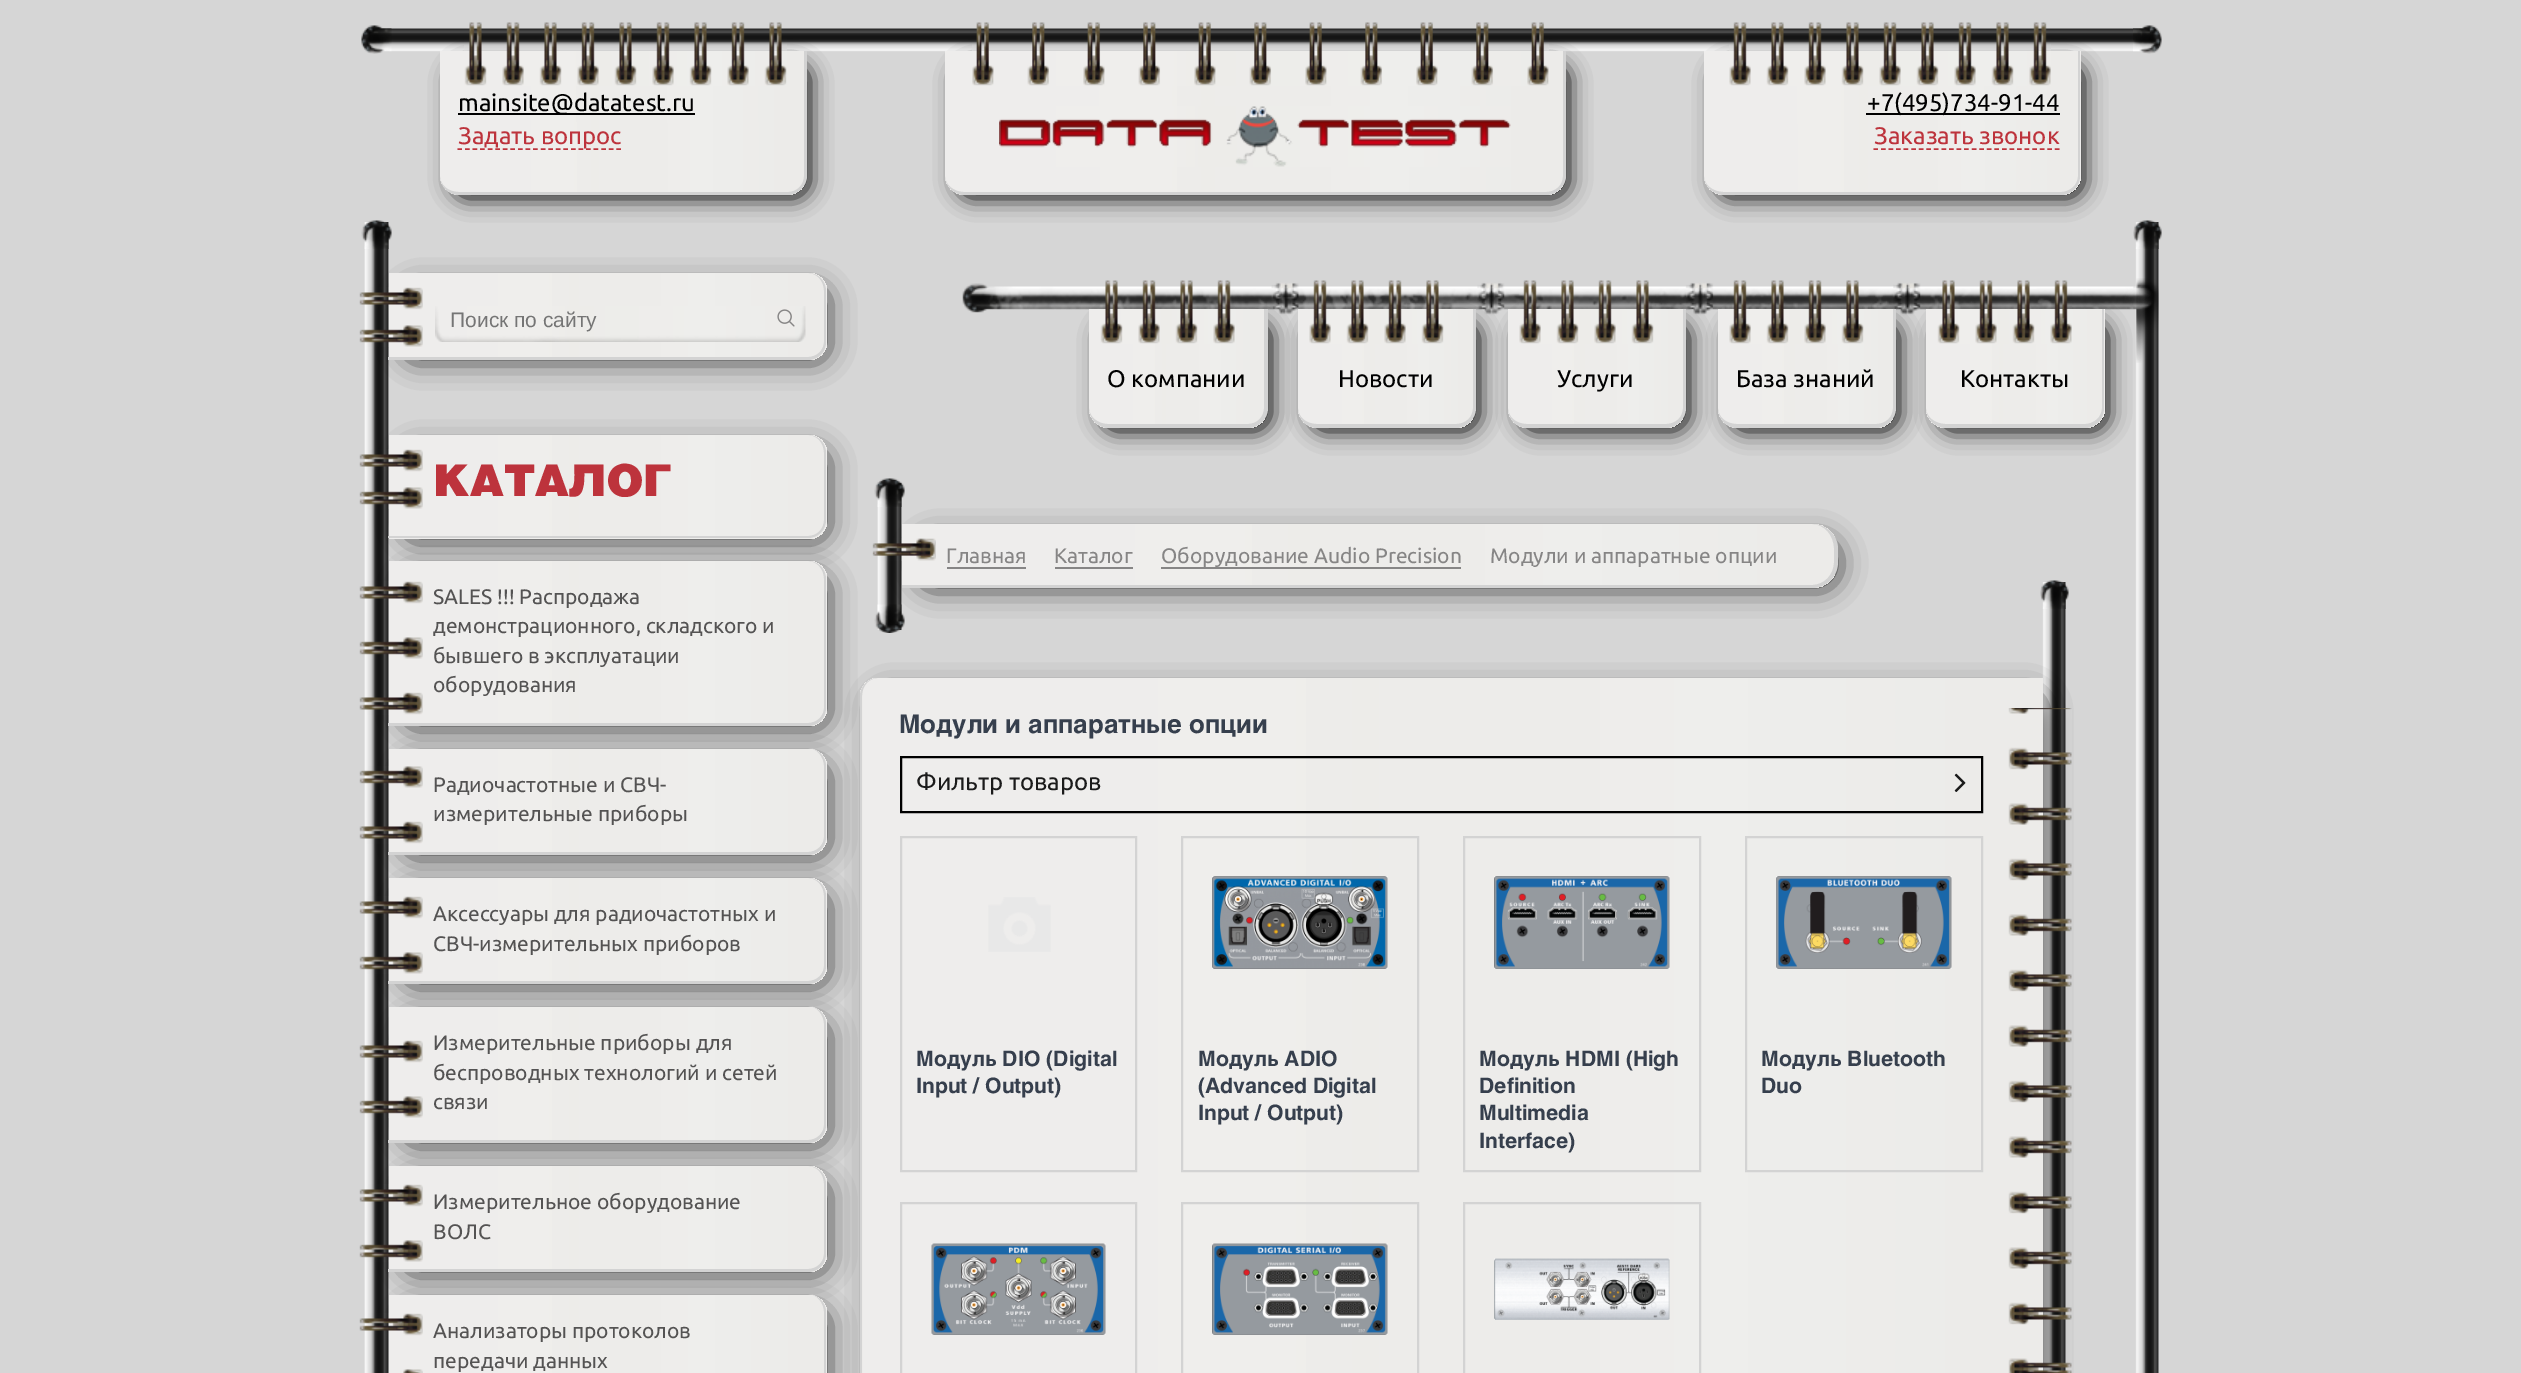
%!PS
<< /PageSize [2521 1373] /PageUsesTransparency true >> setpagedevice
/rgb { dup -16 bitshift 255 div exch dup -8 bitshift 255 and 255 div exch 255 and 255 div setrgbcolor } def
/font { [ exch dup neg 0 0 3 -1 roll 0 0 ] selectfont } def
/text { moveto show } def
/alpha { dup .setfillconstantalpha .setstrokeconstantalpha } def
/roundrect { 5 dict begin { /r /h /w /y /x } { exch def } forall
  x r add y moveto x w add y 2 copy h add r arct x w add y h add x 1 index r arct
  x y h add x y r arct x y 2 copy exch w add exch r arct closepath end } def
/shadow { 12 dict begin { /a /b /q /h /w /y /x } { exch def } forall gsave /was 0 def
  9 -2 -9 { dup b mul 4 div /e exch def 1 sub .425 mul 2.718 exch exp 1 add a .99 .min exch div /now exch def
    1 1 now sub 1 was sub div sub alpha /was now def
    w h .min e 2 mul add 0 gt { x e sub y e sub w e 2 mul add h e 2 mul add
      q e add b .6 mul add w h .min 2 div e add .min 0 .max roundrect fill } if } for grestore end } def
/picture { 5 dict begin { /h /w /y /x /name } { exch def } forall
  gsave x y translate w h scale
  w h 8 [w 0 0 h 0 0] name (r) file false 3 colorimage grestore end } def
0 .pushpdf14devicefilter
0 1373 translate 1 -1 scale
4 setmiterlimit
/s1 { /Ubuntu-Regular 24 font 16#000000 rgb } def
/s2 { /Ubuntu-Regular 24 font 16#BD333C rgb } def
/s3 { /LiberationSans-Regular 21 font 16#757575 rgb } def
/s4 { /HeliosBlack-Black 43.5 font 16#BD333C rgb } def
/s5 { /Ubuntu-Regular 21 font 16#545353 rgb } def
/s6 { /Ubuntu-Regular 21 font 16#868585 rgb } def
/s7 { /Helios-Bold 25.5 font 16#363F4D rgb } def
/s8 { /Ubuntu-Regular 24 font 16#1B1B1B rgb } def
/s9 { /Helios-Bold 21 font 16#363F4D rgb } def
16#D6D6D6 rgb
0 0 2521 1373 rectfill
(pic1.raw) 361 25 1801 29 picture
(pic6.raw) 361 220 1801 1153 picture
16#000000 rgb
452 63 358 135 15 11 1 shadow
gsave
440 51 moveto 807 51 lineto 807 175 lineto 807 186 798 195 787 195 curveto 460 195 lineto 449 195 440 186 440 175 curveto closepath clip newpath
gsave 440 51 moveto 804 51 lineto 804 195 lineto 460 195 lineto 449 195 440 186 440 175 curveto closepath clip newpath
<< /ShadingType 2 /ColorSpace /DeviceRGB /Coords [440 122 804 121] /Extend [true true] /Function << /FunctionType 3 /Domain [0 1] /Functions [<< /FunctionType 2 /Domain [0 1] /C0 [0.933 0.929 0.925] /C1 [0.937 0.933 0.925] /N 1 >> << /FunctionType 2 /Domain [0 1] /C0 [0.937 0.933 0.925] /C1 [0.929 0.925 0.914] /N 1 >> << /FunctionType 2 /Domain [0 1] /C0 [0.929 0.925 0.914] /C1 [0.933 0.933 0.925] /N 1 >> << /FunctionType 2 /Domain [0 1] /C0 [0.933 0.933 0.925] /C1 [0.925 0.922 0.914] /N 1 >>] /Bounds [0.36 0.42 0.73] /Encode [0 1 0 1 0 1 0 1] >> >> shfill grestore
grestore
16#D3D3D3 rgb
440 51 moveto 807 51 lineto 807 176 lineto 807 186 798 195 788 195 curveto 459 195 lineto 448 195 440 186 440 176 curveto closepath 440 51 moveto 804 51 lineto 804 176 lineto 804 185 797 192 788 192 curveto 459 192 lineto 448 192 440 185 440 176 curveto closepath eofill
(pic2.raw) 464 22 323 64 picture
16#000000 rgb
458 113 237 2 rectfill
s1
(mainsite@datatest.ru) 458 111 text
16#BD333C rgb
1.5 setlinewidth
[4.5 3.07] 0 setdash
457.5 149 moveto 621 149 lineto stroke
(Задать вопрос) 458 144 text
16#000000 rgb
957 63 612 135 15 11 1 shadow
gsave
945 51 moveto 1566 51 lineto 1566 175 lineto 1566 186 1557 195 1546 195 curveto 965 195 lineto 954 195 945 186 945 175 curveto closepath clip newpath
gsave 945 51 moveto 1563 51 lineto 1563 195 lineto 965 195 lineto 954 195 945 186 945 175 curveto closepath clip newpath
<< /ShadingType 2 /ColorSpace /DeviceRGB /Coords [945 122 1563 121] /Extend [true true] /Function << /FunctionType 3 /Domain [0 1] /Functions [<< /FunctionType 2 /Domain [0 1] /C0 [0.933 0.929 0.925] /C1 [0.937 0.933 0.925] /N 1 >> << /FunctionType 2 /Domain [0 1] /C0 [0.937 0.933 0.925] /C1 [0.929 0.925 0.914] /N 1 >> << /FunctionType 2 /Domain [0 1] /C0 [0.929 0.925 0.914] /C1 [0.933 0.933 0.925] /N 1 >> << /FunctionType 2 /Domain [0 1] /C0 [0.933 0.933 0.925] /C1 [0.925 0.922 0.914] /N 1 >>] /Bounds [0.36 0.42 0.73] /Encode [0 1 0 1 0 1 0 1] >> >> shfill grestore
grestore
16#D3D3D3 rgb
945 51 moveto 1566 51 lineto 1566 176 lineto 1566 186 1557 195 1546 195 curveto 964 195 lineto 954 195 945 186 945 176 curveto closepath 945 51 moveto 1563 51 lineto 1563 176 lineto 1563 185 1556 192 1546 192 curveto 964 192 lineto 954 192 945 185 945 176 curveto closepath eofill
(pic3.raw) 972 22 577 64 picture
(pic4.raw) 999 106 512 61 picture
16#000000 rgb
1716 63 368 135 15 11 1 shadow
gsave
1704 51 moveto 2081 51 lineto 2081 175 lineto 2081 186 2072 195 2061 195 curveto 1724 195 lineto 1713 195 1704 186 1704 175 curveto closepath clip newpath
gsave 1704 51 moveto 2078 51 lineto 2078 195 lineto 1724 195 lineto 1713 195 1704 186 1704 175 curveto closepath clip newpath
<< /ShadingType 2 /ColorSpace /DeviceRGB /Coords [1704 122 2078 121] /Extend [true true] /Function << /FunctionType 3 /Domain [0 1] /Functions [<< /FunctionType 2 /Domain [0 1] /C0 [0.933 0.929 0.925] /C1 [0.937 0.933 0.925] /N 1 >> << /FunctionType 2 /Domain [0 1] /C0 [0.937 0.933 0.925] /C1 [0.929 0.925 0.914] /N 1 >> << /FunctionType 2 /Domain [0 1] /C0 [0.929 0.925 0.914] /C1 [0.933 0.933 0.925] /N 1 >> << /FunctionType 2 /Domain [0 1] /C0 [0.933 0.933 0.925] /C1 [0.925 0.922 0.914] /N 1 >>] /Bounds [0.36 0.42 0.73] /Encode [0 1 0 1 0 1 0 1] >> >> shfill grestore
gsave 2078 51 moveto 2081 51 lineto 2081 186 lineto 2078 186 lineto closepath clip newpath
<< /ShadingType 2 /ColorSpace /DeviceRGB /Coords [2078 122 2451 121] /Extend [true true] /Function << /FunctionType 3 /Domain [0 1] /Functions [<< /FunctionType 2 /Domain [0 1] /C0 [0.933 0.929 0.925] /C1 [0.937 0.933 0.925] /N 1 >> << /FunctionType 2 /Domain [0 1] /C0 [0.937 0.933 0.925] /C1 [0.929 0.925 0.914] /N 1 >> << /FunctionType 2 /Domain [0 1] /C0 [0.929 0.925 0.914] /C1 [0.933 0.933 0.925] /N 1 >> << /FunctionType 2 /Domain [0 1] /C0 [0.933 0.933 0.925] /C1 [0.925 0.922 0.914] /N 1 >>] /Bounds [0.36 0.42 0.73] /Encode [0 1 0 1 0 1 0 1] >> >> shfill grestore
grestore
16#D3D3D3 rgb
1704 51 moveto 2080 51 lineto 2080 176 lineto 2080 186 2072 195 2061 195 curveto 1724 195 lineto 1713 195 1704 186 1704 176 curveto closepath 1704 51 moveto 2078 51 lineto 2078 176 lineto 2078 185 2070 192 2061 192 curveto 1724 192 lineto 1713 192 1704 185 1704 176 curveto closepath eofill
(pic5.raw) 1729 22 322 64 picture
16#000000 rgb
1866 113 194 2 rectfill
(+7\(495\)734-91-44) 1867 111 text
s2
(Заказать звонок) 1874 144 text
[4.5 3.06] 0 setdash
1873.5 149 moveto 2059.5 149 lineto stroke
16#000000 rgb
407 291 417 66 8 15 1 shadow
gsave
389 273 moveto 809 273 lineto 819 273 827 281 827 291 curveto 827 342 lineto 827 352 819 360 809 360 curveto 389 360 lineto closepath clip newpath
gsave 389 273 moveto 824 273 lineto 824 360 lineto 389 360 lineto closepath clip newpath
<< /ShadingType 2 /ColorSpace /DeviceRGB /Coords [389 315 824 315] /Extend [true true] /Function << /FunctionType 3 /Domain [0 1] /Functions [<< /FunctionType 2 /Domain [0 1] /C0 [0.933 0.929 0.925] /C1 [0.937 0.933 0.925] /N 1 >> << /FunctionType 2 /Domain [0 1] /C0 [0.937 0.933 0.925] /C1 [0.929 0.925 0.914] /N 1 >> << /FunctionType 2 /Domain [0 1] /C0 [0.929 0.925 0.914] /C1 [0.933 0.933 0.925] /N 1 >> << /FunctionType 2 /Domain [0 1] /C0 [0.933 0.933 0.925] /C1 [0.925 0.922 0.914] /N 1 >>] /Bounds [0.36 0.42 0.73] /Encode [0 1 0 1 0 1 0 1] >> >> shfill grestore
gsave 824 273 moveto 827 273 lineto 827 360 lineto 824 360 lineto closepath clip newpath
<< /ShadingType 2 /ColorSpace /DeviceRGB /Coords [824 315 1259 315] /Extend [true true] /Function << /FunctionType 3 /Domain [0 1] /Functions [<< /FunctionType 2 /Domain [0 1] /C0 [0.933 0.929 0.925] /C1 [0.937 0.933 0.925] /N 1 >> << /FunctionType 2 /Domain [0 1] /C0 [0.937 0.933 0.925] /C1 [0.929 0.925 0.914] /N 1 >> << /FunctionType 2 /Domain [0 1] /C0 [0.929 0.925 0.914] /C1 [0.933 0.933 0.925] /N 1 >> << /FunctionType 2 /Domain [0 1] /C0 [0.933 0.933 0.925] /C1 [0.925 0.922 0.914] /N 1 >>] /Bounds [0.36 0.42 0.73] /Encode [0 1 0 1 0 1 0 1] >> >> shfill grestore
grestore
16#D3D3D3 rgb
388 273 moveto 808 273 lineto 818 273 826 281 826 291 curveto 826 342 lineto 826 352 818 360 808 360 curveto 388 360 lineto closepath 388 273 moveto 808 273 lineto 817 273 824 281 824 291 curveto 824 342 lineto 824 350 817 357 808 357 curveto 388 357 lineto closepath eofill
(pic7.raw) 359 287 64 60 picture
(pic8.raw) 435 306 371 36 picture
s3
(Поиск по сайту) 450 327 text
(pic9.raw) 777 309 18 18 picture
16#000000 rgb
407 453 417 83 8 15 1 shadow
gsave
389 435 moveto 809 435 lineto 819 435 827 443 827 453 curveto 827 521 lineto 827 531 819 539 809 539 curveto 389 539 lineto closepath clip newpath
gsave 389 435 moveto 824 435 lineto 824 539 lineto 389 539 lineto closepath clip newpath
<< /ShadingType 2 /ColorSpace /DeviceRGB /Coords [389 485 824 485] /Extend [true true] /Function << /FunctionType 3 /Domain [0 1] /Functions [<< /FunctionType 2 /Domain [0 1] /C0 [0.933 0.929 0.925] /C1 [0.937 0.933 0.925] /N 1 >> << /FunctionType 2 /Domain [0 1] /C0 [0.937 0.933 0.925] /C1 [0.929 0.925 0.914] /N 1 >> << /FunctionType 2 /Domain [0 1] /C0 [0.929 0.925 0.914] /C1 [0.933 0.933 0.925] /N 1 >> << /FunctionType 2 /Domain [0 1] /C0 [0.933 0.933 0.925] /C1 [0.925 0.922 0.914] /N 1 >>] /Bounds [0.36 0.42 0.73] /Encode [0 1 0 1 0 1 0 1] >> >> shfill grestore
gsave 824 435 moveto 827 435 lineto 827 539 lineto 824 539 lineto closepath clip newpath
<< /ShadingType 2 /ColorSpace /DeviceRGB /Coords [824 485 1259 485] /Extend [true true] /Function << /FunctionType 3 /Domain [0 1] /Functions [<< /FunctionType 2 /Domain [0 1] /C0 [0.933 0.929 0.925] /C1 [0.937 0.933 0.925] /N 1 >> << /FunctionType 2 /Domain [0 1] /C0 [0.937 0.933 0.925] /C1 [0.929 0.925 0.914] /N 1 >> << /FunctionType 2 /Domain [0 1] /C0 [0.929 0.925 0.914] /C1 [0.933 0.933 0.925] /N 1 >> << /FunctionType 2 /Domain [0 1] /C0 [0.933 0.933 0.925] /C1 [0.925 0.922 0.914] /N 1 >>] /Bounds [0.36 0.42 0.73] /Encode [0 1 0 1 0 1 0 1] >> >> shfill grestore
grestore
16#D3D3D3 rgb
388 435 moveto 808 435 lineto 818 435 826 443 826 453 curveto 826 520 lineto 826 530 818 538 808 538 curveto 388 538 lineto closepath 388 435 moveto 808 435 lineto 817 435 824 443 824 453 curveto 824 520 lineto 824 529 817 536 808 536 curveto 388 536 lineto closepath eofill
(pic10.raw) 359 449 64 60 picture
s4
(КАТАЛОГ) 433 496 text
(pic25.raw) 2040 580 29 791 picture
16#000000 rgb
878 696 1162 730 8 15 1 shadow
gsave
878 678 moveto 2043 678 lineto 2043 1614 lineto 878 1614 lineto 868 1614 860 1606 860 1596 curveto 860 696 lineto 860 686 868 678 878 678 curveto closepath clip newpath
gsave 860 678 moveto 863 678 lineto 863 1373 lineto 860 1373 lineto closepath clip newpath
<< /ShadingType 2 /ColorSpace /DeviceRGB /Coords [-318 1145 863 1145] /Extend [true true] /Function << /FunctionType 3 /Domain [0 1] /Functions [<< /FunctionType 2 /Domain [0 1] /C0 [0.933 0.929 0.925] /C1 [0.937 0.933 0.925] /N 1 >> << /FunctionType 2 /Domain [0 1] /C0 [0.937 0.933 0.925] /C1 [0.929 0.925 0.914] /N 1 >> << /FunctionType 2 /Domain [0 1] /C0 [0.929 0.925 0.914] /C1 [0.933 0.933 0.925] /N 1 >> << /FunctionType 2 /Domain [0 1] /C0 [0.933 0.933 0.925] /C1 [0.925 0.922 0.914] /N 1 >>] /Bounds [0.36 0.42 0.73] /Encode [0 1 0 1 0 1 0 1] >> >> shfill grestore
gsave 863 678 moveto 2043 678 lineto 2043 1373 lineto 863 1373 lineto closepath clip newpath
<< /ShadingType 2 /ColorSpace /DeviceRGB /Coords [863 1145 2043 1145] /Extend [true true] /Function << /FunctionType 3 /Domain [0 1] /Functions [<< /FunctionType 2 /Domain [0 1] /C0 [0.933 0.929 0.925] /C1 [0.937 0.933 0.925] /N 1 >> << /FunctionType 2 /Domain [0 1] /C0 [0.937 0.933 0.925] /C1 [0.929 0.925 0.914] /N 1 >> << /FunctionType 2 /Domain [0 1] /C0 [0.929 0.925 0.914] /C1 [0.933 0.933 0.925] /N 1 >> << /FunctionType 2 /Domain [0 1] /C0 [0.933 0.933 0.925] /C1 [0.925 0.922 0.914] /N 1 >>] /Bounds [0.36 0.42 0.73] /Encode [0 1 0 1 0 1 0 1] >> >> shfill grestore
grestore
16#D3D3D3 rgb
878 678 moveto 2043 678 lineto 2043 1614 lineto 878 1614 lineto 868 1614 860 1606 860 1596 curveto 860 696 lineto 860 686 868 678 878 678 curveto closepath 878 678 moveto 2043 678 lineto 2043 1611 lineto 878 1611 lineto 869 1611 862 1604 862 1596 curveto 862 696 lineto 862 686 869 678 878 678 curveto closepath eofill
16#000000 rgb
407 579 417 144 8 15 1 shadow
gsave
389 561 moveto 809 561 lineto 819 561 827 569 827 579 curveto 827 708 lineto 827 718 819 726 809 726 curveto 389 726 lineto closepath clip newpath
gsave 389 561 moveto 824 561 lineto 824 726 lineto 389 726 lineto closepath clip newpath
<< /ShadingType 2 /ColorSpace /DeviceRGB /Coords [389 642 824 642] /Extend [true true] /Function << /FunctionType 3 /Domain [0 1] /Functions [<< /FunctionType 2 /Domain [0 1] /C0 [0.933 0.929 0.925] /C1 [0.937 0.933 0.925] /N 1 >> << /FunctionType 2 /Domain [0 1] /C0 [0.937 0.933 0.925] /C1 [0.929 0.925 0.914] /N 1 >> << /FunctionType 2 /Domain [0 1] /C0 [0.929 0.925 0.914] /C1 [0.933 0.933 0.925] /N 1 >> << /FunctionType 2 /Domain [0 1] /C0 [0.933 0.933 0.925] /C1 [0.925 0.922 0.914] /N 1 >>] /Bounds [0.36 0.42 0.73] /Encode [0 1 0 1 0 1 0 1] >> >> shfill grestore
gsave 824 561 moveto 827 561 lineto 827 726 lineto 824 726 lineto closepath clip newpath
<< /ShadingType 2 /ColorSpace /DeviceRGB /Coords [824 642 1259 642] /Extend [true true] /Function << /FunctionType 3 /Domain [0 1] /Functions [<< /FunctionType 2 /Domain [0 1] /C0 [0.933 0.929 0.925] /C1 [0.937 0.933 0.925] /N 1 >> << /FunctionType 2 /Domain [0 1] /C0 [0.937 0.933 0.925] /C1 [0.929 0.925 0.914] /N 1 >> << /FunctionType 2 /Domain [0 1] /C0 [0.929 0.925 0.914] /C1 [0.933 0.933 0.925] /N 1 >> << /FunctionType 2 /Domain [0 1] /C0 [0.933 0.933 0.925] /C1 [0.925 0.922 0.914] /N 1 >>] /Bounds [0.36 0.42 0.73] /Encode [0 1 0 1 0 1 0 1] >> >> shfill grestore
grestore
16#D3D3D3 rgb
388 561 moveto 808 561 lineto 818 561 826 569 826 579 curveto 826 708 lineto 826 718 818 726 808 726 curveto 388 726 lineto closepath 388 561 moveto 808 561 lineto 817 561 824 569 824 579 curveto 824 708 lineto 824 716 817 723 808 723 curveto 388 723 lineto closepath eofill
(pic11.raw) 359 581 64 134 picture
s5
(SALES !!! Распродажа) 433 604 text
(демонстрационного, складского и) 433 633 text
(бывшего в эксплуатации) 433 663 text
(оборудования) 433 692 text
16#000000 rgb
407 767 417 85 8 15 1 shadow
gsave
389 749 moveto 809 749 lineto 819 749 827 757 827 767 curveto 827 837 lineto 827 847 819 855 809 855 curveto 389 855 lineto closepath clip newpath
gsave 389 749 moveto 824 749 lineto 824 855 lineto 389 855 lineto closepath clip newpath
<< /ShadingType 2 /ColorSpace /DeviceRGB /Coords [389 800 824 800] /Extend [true true] /Function << /FunctionType 3 /Domain [0 1] /Functions [<< /FunctionType 2 /Domain [0 1] /C0 [0.933 0.929 0.925] /C1 [0.937 0.933 0.925] /N 1 >> << /FunctionType 2 /Domain [0 1] /C0 [0.937 0.933 0.925] /C1 [0.929 0.925 0.914] /N 1 >> << /FunctionType 2 /Domain [0 1] /C0 [0.929 0.925 0.914] /C1 [0.933 0.933 0.925] /N 1 >> << /FunctionType 2 /Domain [0 1] /C0 [0.933 0.933 0.925] /C1 [0.925 0.922 0.914] /N 1 >>] /Bounds [0.36 0.42 0.73] /Encode [0 1 0 1 0 1 0 1] >> >> shfill grestore
gsave 824 749 moveto 827 749 lineto 827 855 lineto 824 855 lineto closepath clip newpath
<< /ShadingType 2 /ColorSpace /DeviceRGB /Coords [824 800 1259 800] /Extend [true true] /Function << /FunctionType 3 /Domain [0 1] /Functions [<< /FunctionType 2 /Domain [0 1] /C0 [0.933 0.929 0.925] /C1 [0.937 0.933 0.925] /N 1 >> << /FunctionType 2 /Domain [0 1] /C0 [0.937 0.933 0.925] /C1 [0.929 0.925 0.914] /N 1 >> << /FunctionType 2 /Domain [0 1] /C0 [0.929 0.925 0.914] /C1 [0.933 0.933 0.925] /N 1 >> << /FunctionType 2 /Domain [0 1] /C0 [0.933 0.933 0.925] /C1 [0.925 0.922 0.914] /N 1 >>] /Bounds [0.36 0.42 0.73] /Encode [0 1 0 1 0 1 0 1] >> >> shfill grestore
grestore
16#D3D3D3 rgb
388 748 moveto 808 748 lineto 818 748 826 757 826 766 curveto 826 837 lineto 826 847 818 855 808 855 curveto 388 855 lineto closepath 388 748 moveto 808 748 lineto 817 748 824 757 824 766 curveto 824 837 lineto 824 845 817 852 808 852 curveto 388 852 lineto closepath eofill
(pic12.raw) 359 766 64 78 picture
s5
(Радиочастотные и СВЧ-) 433 792 text
(измерительные приборы) 433 821 text
16#000000 rgb
407 896 417 85 8 15 1 shadow
gsave
389 878 moveto 809 878 lineto 819 878 827 886 827 896 curveto 827 966 lineto 827 976 819 984 809 984 curveto 389 984 lineto closepath clip newpath
gsave 389 878 moveto 824 878 lineto 824 984 lineto 389 984 lineto closepath clip newpath
<< /ShadingType 2 /ColorSpace /DeviceRGB /Coords [389 929 824 929] /Extend [true true] /Function << /FunctionType 3 /Domain [0 1] /Functions [<< /FunctionType 2 /Domain [0 1] /C0 [0.933 0.929 0.925] /C1 [0.937 0.933 0.925] /N 1 >> << /FunctionType 2 /Domain [0 1] /C0 [0.937 0.933 0.925] /C1 [0.929 0.925 0.914] /N 1 >> << /FunctionType 2 /Domain [0 1] /C0 [0.929 0.925 0.914] /C1 [0.933 0.933 0.925] /N 1 >> << /FunctionType 2 /Domain [0 1] /C0 [0.933 0.933 0.925] /C1 [0.925 0.922 0.914] /N 1 >>] /Bounds [0.36 0.42 0.73] /Encode [0 1 0 1 0 1 0 1] >> >> shfill grestore
gsave 824 878 moveto 827 878 lineto 827 984 lineto 824 984 lineto closepath clip newpath
<< /ShadingType 2 /ColorSpace /DeviceRGB /Coords [824 929 1259 929] /Extend [true true] /Function << /FunctionType 3 /Domain [0 1] /Functions [<< /FunctionType 2 /Domain [0 1] /C0 [0.933 0.929 0.925] /C1 [0.937 0.933 0.925] /N 1 >> << /FunctionType 2 /Domain [0 1] /C0 [0.937 0.933 0.925] /C1 [0.929 0.925 0.914] /N 1 >> << /FunctionType 2 /Domain [0 1] /C0 [0.929 0.925 0.914] /C1 [0.933 0.933 0.925] /N 1 >> << /FunctionType 2 /Domain [0 1] /C0 [0.933 0.933 0.925] /C1 [0.925 0.922 0.914] /N 1 >>] /Bounds [0.36 0.42 0.73] /Encode [0 1 0 1 0 1 0 1] >> >> shfill grestore
grestore
16#D3D3D3 rgb
388 878 moveto 808 878 lineto 818 878 826 886 826 896 curveto 826 966 lineto 826 976 818 984 808 984 curveto 388 984 lineto closepath 388 878 moveto 808 878 lineto 817 878 824 886 824 896 curveto 824 966 lineto 824 974 817 981 808 981 curveto 388 981 lineto closepath eofill
(pic13.raw) 359 896 64 78 picture
s5
(Аксессуары для радиочастотных и) 433 921 text
(СВЧ-измерительных приборов) 433 951 text
16#000000 rgb
407 1025 417 115 8 15 1 shadow
gsave
389 1007 moveto 809 1007 lineto 819 1007 827 1015 827 1025 curveto 827 1125 lineto 827 1135 819 1143 809 1143 curveto 389 1143 lineto closepath clip newpath
gsave 389 1007 moveto 824 1007 lineto 824 1143 lineto 389 1143 lineto closepath clip newpath
<< /ShadingType 2 /ColorSpace /DeviceRGB /Coords [389 1073 824 1073] /Extend [true true] /Function << /FunctionType 3 /Domain [0 1] /Functions [<< /FunctionType 2 /Domain [0 1] /C0 [0.933 0.929 0.925] /C1 [0.937 0.933 0.925] /N 1 >> << /FunctionType 2 /Domain [0 1] /C0 [0.937 0.933 0.925] /C1 [0.929 0.925 0.914] /N 1 >> << /FunctionType 2 /Domain [0 1] /C0 [0.929 0.925 0.914] /C1 [0.933 0.933 0.925] /N 1 >> << /FunctionType 2 /Domain [0 1] /C0 [0.933 0.933 0.925] /C1 [0.925 0.922 0.914] /N 1 >>] /Bounds [0.36 0.42 0.73] /Encode [0 1 0 1 0 1 0 1] >> >> shfill grestore
gsave 824 1007 moveto 827 1007 lineto 827 1143 lineto 824 1143 lineto closepath clip newpath
<< /ShadingType 2 /ColorSpace /DeviceRGB /Coords [824 1073 1259 1073] /Extend [true true] /Function << /FunctionType 3 /Domain [0 1] /Functions [<< /FunctionType 2 /Domain [0 1] /C0 [0.933 0.929 0.925] /C1 [0.937 0.933 0.925] /N 1 >> << /FunctionType 2 /Domain [0 1] /C0 [0.937 0.933 0.925] /C1 [0.929 0.925 0.914] /N 1 >> << /FunctionType 2 /Domain [0 1] /C0 [0.929 0.925 0.914] /C1 [0.933 0.933 0.925] /N 1 >> << /FunctionType 2 /Domain [0 1] /C0 [0.933 0.933 0.925] /C1 [0.925 0.922 0.914] /N 1 >>] /Bounds [0.36 0.42 0.73] /Encode [0 1 0 1 0 1 0 1] >> >> shfill grestore
grestore
16#D3D3D3 rgb
388 1006 moveto 808 1006 lineto 818 1006 826 1015 826 1024 curveto 826 1125 lineto 826 1135 818 1143 808 1143 curveto 388 1143 lineto closepath 388 1006 moveto 808 1006 lineto 817 1006 824 1015 824 1024 curveto 824 1125 lineto 824 1133 817 1140 808 1140 curveto 388 1140 lineto closepath eofill
(pic14.raw) 359 1040 64 78 picture
s5
(Измерительные приборы для) 433 1050 text
(беспроводных технологий и сетей) 433 1080 text
(связи) 433 1109 text
16#000000 rgb
407 1184 417 85 8 15 1 shadow
gsave
389 1166 moveto 809 1166 lineto 819 1166 827 1174 827 1184 curveto 827 1254 lineto 827 1264 819 1272 809 1272 curveto 389 1272 lineto closepath clip newpath
gsave 389 1166 moveto 824 1166 lineto 824 1272 lineto 389 1272 lineto closepath clip newpath
<< /ShadingType 2 /ColorSpace /DeviceRGB /Coords [389 1217 824 1217] /Extend [true true] /Function << /FunctionType 3 /Domain [0 1] /Functions [<< /FunctionType 2 /Domain [0 1] /C0 [0.933 0.929 0.925] /C1 [0.937 0.933 0.925] /N 1 >> << /FunctionType 2 /Domain [0 1] /C0 [0.937 0.933 0.925] /C1 [0.929 0.925 0.914] /N 1 >> << /FunctionType 2 /Domain [0 1] /C0 [0.929 0.925 0.914] /C1 [0.933 0.933 0.925] /N 1 >> << /FunctionType 2 /Domain [0 1] /C0 [0.933 0.933 0.925] /C1 [0.925 0.922 0.914] /N 1 >>] /Bounds [0.36 0.42 0.73] /Encode [0 1 0 1 0 1 0 1] >> >> shfill grestore
gsave 824 1166 moveto 827 1166 lineto 827 1272 lineto 824 1272 lineto closepath clip newpath
<< /ShadingType 2 /ColorSpace /DeviceRGB /Coords [824 1217 1259 1217] /Extend [true true] /Function << /FunctionType 3 /Domain [0 1] /Functions [<< /FunctionType 2 /Domain [0 1] /C0 [0.933 0.929 0.925] /C1 [0.937 0.933 0.925] /N 1 >> << /FunctionType 2 /Domain [0 1] /C0 [0.937 0.933 0.925] /C1 [0.929 0.925 0.914] /N 1 >> << /FunctionType 2 /Domain [0 1] /C0 [0.929 0.925 0.914] /C1 [0.933 0.933 0.925] /N 1 >> << /FunctionType 2 /Domain [0 1] /C0 [0.933 0.933 0.925] /C1 [0.925 0.922 0.914] /N 1 >>] /Bounds [0.36 0.42 0.73] /Encode [0 1 0 1 0 1 0 1] >> >> shfill grestore
grestore
16#D3D3D3 rgb
388 1166 moveto 808 1166 lineto 818 1166 826 1174 826 1184 curveto 826 1254 lineto 826 1264 818 1272 808 1272 curveto 388 1272 lineto closepath 388 1166 moveto 808 1166 lineto 817 1166 824 1174 824 1184 curveto 824 1254 lineto 824 1262 817 1269 808 1269 curveto 388 1269 lineto closepath eofill
(pic15.raw) 359 1184 64 78 picture
s5
(Измерительное оборудование) 433 1209 text
(ВОЛС) 433 1239 text
16#000000 rgb
407 1313 417 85 8 15 1 shadow
gsave
389 1295 moveto 809 1295 lineto 819 1295 827 1303 827 1313 curveto 827 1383 lineto 827 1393 819 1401 809 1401 curveto 389 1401 lineto closepath clip newpath
gsave 389 1295 moveto 824 1295 lineto 824 1373 lineto 389 1373 lineto closepath clip newpath
<< /ShadingType 2 /ColorSpace /DeviceRGB /Coords [389 1346 824 1346] /Extend [true true] /Function << /FunctionType 3 /Domain [0 1] /Functions [<< /FunctionType 2 /Domain [0 1] /C0 [0.933 0.929 0.925] /C1 [0.937 0.933 0.925] /N 1 >> << /FunctionType 2 /Domain [0 1] /C0 [0.937 0.933 0.925] /C1 [0.929 0.925 0.914] /N 1 >> << /FunctionType 2 /Domain [0 1] /C0 [0.929 0.925 0.914] /C1 [0.933 0.933 0.925] /N 1 >> << /FunctionType 2 /Domain [0 1] /C0 [0.933 0.933 0.925] /C1 [0.925 0.922 0.914] /N 1 >>] /Bounds [0.36 0.42 0.73] /Encode [0 1 0 1 0 1 0 1] >> >> shfill grestore
gsave 824 1295 moveto 827 1295 lineto 827 1373 lineto 824 1373 lineto closepath clip newpath
<< /ShadingType 2 /ColorSpace /DeviceRGB /Coords [824 1346 1259 1346] /Extend [true true] /Function << /FunctionType 3 /Domain [0 1] /Functions [<< /FunctionType 2 /Domain [0 1] /C0 [0.933 0.929 0.925] /C1 [0.937 0.933 0.925] /N 1 >> << /FunctionType 2 /Domain [0 1] /C0 [0.937 0.933 0.925] /C1 [0.929 0.925 0.914] /N 1 >> << /FunctionType 2 /Domain [0 1] /C0 [0.929 0.925 0.914] /C1 [0.933 0.933 0.925] /N 1 >> << /FunctionType 2 /Domain [0 1] /C0 [0.933 0.933 0.925] /C1 [0.925 0.922 0.914] /N 1 >>] /Bounds [0.36 0.42 0.73] /Encode [0 1 0 1 0 1 0 1] >> >> shfill grestore
grestore
16#D3D3D3 rgb
388 1294 moveto 808 1294 lineto 818 1294 826 1303 826 1312 curveto 826 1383 lineto 826 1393 818 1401 808 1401 curveto 388 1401 lineto closepath 388 1294 moveto 808 1294 lineto 817 1294 824 1303 824 1312 curveto 824 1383 lineto 824 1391 817 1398 808 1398 curveto 388 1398 lineto closepath eofill
(pic16.raw) 359 1313 64 60 picture
s5
(Анализаторы протоколов) 433 1338 text
(передачи данных) 433 1368 text
(pic17.raw) 962 278 1197 85 picture
16#000000 rgb
1101 321 170 110 15 11 1 shadow
gsave
1089 309 moveto 1268 309 lineto 1268 408 lineto 1268 419 1259 428 1248 428 curveto 1109 428 lineto 1098 428 1089 419 1089 408 curveto closepath clip newpath
gsave 1089 309 moveto 1265 309 lineto 1265 428 lineto 1109 428 lineto 1098 428 1089 419 1089 408 curveto closepath clip newpath
<< /ShadingType 2 /ColorSpace /DeviceRGB /Coords [1089 367 1265 367] /Extend [true true] /Function << /FunctionType 3 /Domain [0 1] /Functions [<< /FunctionType 2 /Domain [0 1] /C0 [0.933 0.929 0.925] /C1 [0.937 0.933 0.925] /N 1 >> << /FunctionType 2 /Domain [0 1] /C0 [0.937 0.933 0.925] /C1 [0.929 0.925 0.914] /N 1 >> << /FunctionType 2 /Domain [0 1] /C0 [0.929 0.925 0.914] /C1 [0.933 0.933 0.925] /N 1 >> << /FunctionType 2 /Domain [0 1] /C0 [0.933 0.933 0.925] /C1 [0.925 0.922 0.914] /N 1 >>] /Bounds [0.36 0.42 0.73] /Encode [0 1 0 1 0 1 0 1] >> >> shfill grestore
grestore
16#D3D3D3 rgb
1089 309 moveto 1268 309 lineto 1268 408 lineto 1268 419 1259 428 1248 428 curveto 1108 428 lineto 1098 428 1089 419 1089 408 curveto closepath 1089 309 moveto 1264 309 lineto 1264 408 lineto 1264 417 1257 424 1248 424 curveto 1108 424 lineto 1098 424 1089 417 1089 408 curveto closepath eofill
(pic18.raw) 1100 280 135 64 picture
s1
(О компании) 1107 387 text
1310 321 169 110 15 11 1 shadow
gsave
1298 309 moveto 1476 309 lineto 1476 408 lineto 1476 419 1467 428 1456 428 curveto 1318 428 lineto 1307 428 1298 419 1298 408 curveto closepath clip newpath
gsave 1298 309 moveto 1473 309 lineto 1473 428 lineto 1318 428 lineto 1307 428 1298 419 1298 408 curveto closepath clip newpath
<< /ShadingType 2 /ColorSpace /DeviceRGB /Coords [1298 367 1473 367] /Extend [true true] /Function << /FunctionType 3 /Domain [0 1] /Functions [<< /FunctionType 2 /Domain [0 1] /C0 [0.933 0.929 0.925] /C1 [0.937 0.933 0.925] /N 1 >> << /FunctionType 2 /Domain [0 1] /C0 [0.937 0.933 0.925] /C1 [0.929 0.925 0.914] /N 1 >> << /FunctionType 2 /Domain [0 1] /C0 [0.929 0.925 0.914] /C1 [0.933 0.933 0.925] /N 1 >> << /FunctionType 2 /Domain [0 1] /C0 [0.933 0.933 0.925] /C1 [0.925 0.922 0.914] /N 1 >>] /Bounds [0.36 0.42 0.73] /Encode [0 1 0 1 0 1 0 1] >> >> shfill grestore
grestore
16#D3D3D3 rgb
1298 309 moveto 1476 309 lineto 1476 408 lineto 1476 419 1467 428 1456 428 curveto 1317 428 lineto 1306 428 1298 419 1298 408 curveto closepath 1298 309 moveto 1473 309 lineto 1473 408 lineto 1473 417 1466 424 1456 424 curveto 1317 424 lineto 1306 424 1298 417 1298 408 curveto closepath eofill
(pic19.raw) 1309 280 135 64 picture
s1
(Новости) 1338 387 text
1520 321 169 110 15 11 1 shadow
gsave
1508 309 moveto 1686 309 lineto 1686 408 lineto 1686 419 1677 428 1666 428 curveto 1528 428 lineto 1517 428 1508 419 1508 408 curveto closepath clip newpath
gsave 1508 309 moveto 1683 309 lineto 1683 428 lineto 1528 428 lineto 1517 428 1508 419 1508 408 curveto closepath clip newpath
<< /ShadingType 2 /ColorSpace /DeviceRGB /Coords [1508 367 1683 367] /Extend [true true] /Function << /FunctionType 3 /Domain [0 1] /Functions [<< /FunctionType 2 /Domain [0 1] /C0 [0.933 0.929 0.925] /C1 [0.937 0.933 0.925] /N 1 >> << /FunctionType 2 /Domain [0 1] /C0 [0.937 0.933 0.925] /C1 [0.929 0.925 0.914] /N 1 >> << /FunctionType 2 /Domain [0 1] /C0 [0.929 0.925 0.914] /C1 [0.933 0.933 0.925] /N 1 >> << /FunctionType 2 /Domain [0 1] /C0 [0.933 0.933 0.925] /C1 [0.925 0.922 0.914] /N 1 >>] /Bounds [0.36 0.42 0.73] /Encode [0 1 0 1 0 1 0 1] >> >> shfill grestore
grestore
16#D3D3D3 rgb
1508 309 moveto 1686 309 lineto 1686 408 lineto 1686 419 1677 428 1666 428 curveto 1527 428 lineto 1516 428 1508 419 1508 408 curveto closepath 1508 309 moveto 1683 309 lineto 1683 408 lineto 1683 417 1676 424 1666 424 curveto 1527 424 lineto 1516 424 1508 417 1508 408 curveto closepath eofill
(pic20.raw) 1519 280 135 64 picture
s1
(Услуги) 1557 387 text
1730 321 169 110 15 11 1 shadow
gsave
1718 309 moveto 1896 309 lineto 1896 408 lineto 1896 419 1887 428 1876 428 curveto 1738 428 lineto 1727 428 1718 419 1718 408 curveto closepath clip newpath
gsave 1718 309 moveto 1893 309 lineto 1893 428 lineto 1738 428 lineto 1727 428 1718 419 1718 408 curveto closepath clip newpath
<< /ShadingType 2 /ColorSpace /DeviceRGB /Coords [1718 367 1893 367] /Extend [true true] /Function << /FunctionType 3 /Domain [0 1] /Functions [<< /FunctionType 2 /Domain [0 1] /C0 [0.933 0.929 0.925] /C1 [0.937 0.933 0.925] /N 1 >> << /FunctionType 2 /Domain [0 1] /C0 [0.937 0.933 0.925] /C1 [0.929 0.925 0.914] /N 1 >> << /FunctionType 2 /Domain [0 1] /C0 [0.929 0.925 0.914] /C1 [0.933 0.933 0.925] /N 1 >> << /FunctionType 2 /Domain [0 1] /C0 [0.933 0.933 0.925] /C1 [0.925 0.922 0.914] /N 1 >>] /Bounds [0.36 0.42 0.73] /Encode [0 1 0 1 0 1 0 1] >> >> shfill grestore
grestore
16#D3D3D3 rgb
1718 309 moveto 1896 309 lineto 1896 408 lineto 1896 419 1887 428 1876 428 curveto 1737 428 lineto 1726 428 1718 419 1718 408 curveto closepath 1718 309 moveto 1893 309 lineto 1893 408 lineto 1893 417 1886 424 1876 424 curveto 1737 424 lineto 1726 424 1718 417 1718 408 curveto closepath eofill
(pic21.raw) 1729 280 135 64 picture
s1
(База знаний) 1736 387 text
1938 321 170 110 15 11 1 shadow
gsave
1926 309 moveto 2105 309 lineto 2105 408 lineto 2105 419 2096 428 2085 428 curveto 1946 428 lineto 1935 428 1926 419 1926 408 curveto closepath clip newpath
gsave 1926 309 moveto 2102 309 lineto 2102 428 lineto 1946 428 lineto 1935 428 1926 419 1926 408 curveto closepath clip newpath
<< /ShadingType 2 /ColorSpace /DeviceRGB /Coords [1926 367 2102 367] /Extend [true true] /Function << /FunctionType 3 /Domain [0 1] /Functions [<< /FunctionType 2 /Domain [0 1] /C0 [0.933 0.929 0.925] /C1 [0.937 0.933 0.925] /N 1 >> << /FunctionType 2 /Domain [0 1] /C0 [0.937 0.933 0.925] /C1 [0.929 0.925 0.914] /N 1 >> << /FunctionType 2 /Domain [0 1] /C0 [0.929 0.925 0.914] /C1 [0.933 0.933 0.925] /N 1 >> << /FunctionType 2 /Domain [0 1] /C0 [0.933 0.933 0.925] /C1 [0.925 0.922 0.914] /N 1 >>] /Bounds [0.36 0.42 0.73] /Encode [0 1 0 1 0 1 0 1] >> >> shfill grestore
gsave 2102 309 moveto 2105 309 lineto 2105 419 lineto 2102 419 lineto closepath clip newpath
<< /ShadingType 2 /ColorSpace /DeviceRGB /Coords [2102 367 2277 367] /Extend [true true] /Function << /FunctionType 3 /Domain [0 1] /Functions [<< /FunctionType 2 /Domain [0 1] /C0 [0.933 0.929 0.925] /C1 [0.937 0.933 0.925] /N 1 >> << /FunctionType 2 /Domain [0 1] /C0 [0.937 0.933 0.925] /C1 [0.929 0.925 0.914] /N 1 >> << /FunctionType 2 /Domain [0 1] /C0 [0.929 0.925 0.914] /C1 [0.933 0.933 0.925] /N 1 >> << /FunctionType 2 /Domain [0 1] /C0 [0.933 0.933 0.925] /C1 [0.925 0.922 0.914] /N 1 >>] /Bounds [0.36 0.42 0.73] /Encode [0 1 0 1 0 1 0 1] >> >> shfill grestore
grestore
16#D3D3D3 rgb
1926 309 moveto 2104 309 lineto 2104 408 lineto 2104 419 2096 428 2085 428 curveto 1946 428 lineto 1935 428 1926 419 1926 408 curveto closepath 1926 309 moveto 2102 309 lineto 2102 408 lineto 2102 417 2094 424 2085 424 curveto 1946 424 lineto 1935 424 1926 417 1926 408 curveto closepath eofill
(pic22.raw) 1937 280 135 64 picture
s1
(Контакты) 1960 387 text
(pic23.raw) 874 478 31 155 picture
920 542 915 43 15 15 1 shadow
gsave
902 524 moveto 1812 524 lineto 1826.5 524 1838 535.5 1838 550 curveto 1838 562 lineto 1838 576.5 1826.5 588 1812 588 curveto 902 588 lineto closepath clip newpath
gsave 902 524 moveto 1835 524 lineto 1835 588 lineto 902 588 lineto closepath clip newpath
<< /ShadingType 2 /ColorSpace /DeviceRGB /Coords [902 554 1835 554] /Extend [true true] /Function << /FunctionType 3 /Domain [0 1] /Functions [<< /FunctionType 2 /Domain [0 1] /C0 [0.933 0.929 0.925] /C1 [0.937 0.933 0.925] /N 1 >> << /FunctionType 2 /Domain [0 1] /C0 [0.937 0.933 0.925] /C1 [0.929 0.925 0.914] /N 1 >> << /FunctionType 2 /Domain [0 1] /C0 [0.929 0.925 0.914] /C1 [0.933 0.933 0.925] /N 1 >> << /FunctionType 2 /Domain [0 1] /C0 [0.933 0.933 0.925] /C1 [0.925 0.922 0.914] /N 1 >>] /Bounds [0.36 0.42 0.73] /Encode [0 1 0 1 0 1 0 1] >> >> shfill grestore
grestore
16#D3D3D3 rgb
902 524 moveto 1812 524 lineto 1826 524 1838 535 1838 549 curveto 1838 562 lineto 1838 577 1826 588 1812 588 curveto 902 588 lineto closepath 902 524 moveto 1812 524 lineto 1824 524 1834 535 1834 549 curveto 1834 562 lineto 1834 575 1824 585 1812 585 curveto 902 585 lineto closepath eofill
(pic24.raw) 872 538 64 23 picture
s6
(Главная) 946 563 text
947 567 79 2 rectfill
(Каталог) 1054 563 text
1055 567 78 2 rectfill
(Оборудование Audio Precision) 1161 563 text
1161 567 300 2 rectfill
(Модули и аппаратные опции) 1490 563 text
s7
(Модули и аппаратные опции) 899 733 text
16#000000 rgb
2 setlinewidth
[] 0 setdash
901 757 1081 55 rectstroke
s8
(Фильтр товаров) 916 790 text
(pic26.raw) 1954 773 12 19 picture
16#D3D3D3 rgb
901 837 235 334 rectstroke
(pic27.raw) 988 897 63 55 picture
s9
(Модуль DIO \(Digital) 916 1066 text
(Input / Output\)) 916 1093 text
16#D3D3D3 rgb
1182 837 236 334 rectstroke
(pic28.raw) 1212 876 176 93 picture
s9
(Модуль ADIO) 1198 1066 text
(\(Advanced Digital) 1198 1093 text
(Input / Output\)) 1198 1120 text
16#D3D3D3 rgb
1464 837 236 334 rectstroke
(pic29.raw) 1494 876 176 93 picture
s9
(Модуль HDMI \(High) 1479 1066 text
(Definition) 1479 1093 text
(Multimedia) 1479 1120 text
(Interface\)) 1479 1148 text
16#D3D3D3 rgb
1746 837 236 334 rectstroke
(pic30.raw) 1776 876 176 93 picture
s9
(Модуль Bluetooth) 1761 1066 text
(Duo) 1761 1093 text
16#D3D3D3 rgb
901 1203 235 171 rectstroke
(pic31.raw) 931 1243 175 92 picture
1182 1203 236 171 rectstroke
(pic32.raw) 1212 1243 176 92 picture
1464 1203 236 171 rectstroke
(pic33.raw) 1494 1258 176 62 picture
(pic34.raw) 2008 708 64 665 picture
.poppdf14devicefilter showpage
